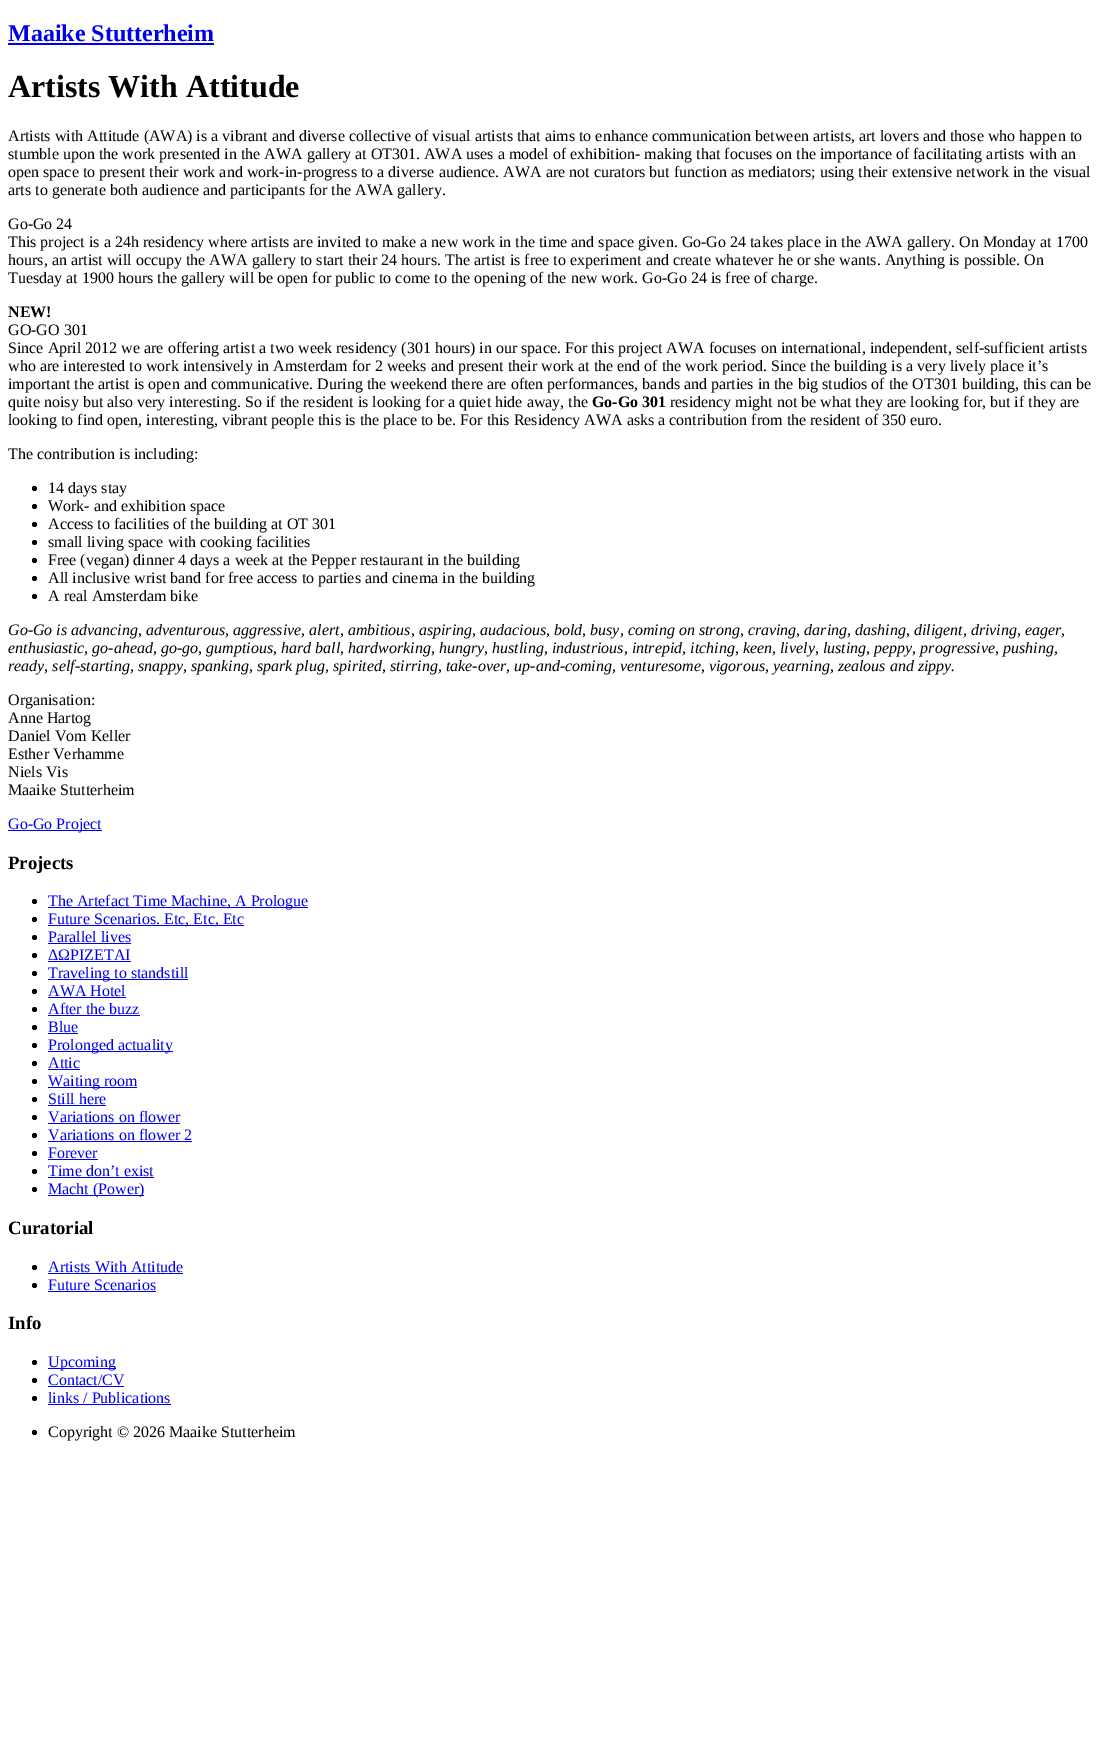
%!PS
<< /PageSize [1105 1746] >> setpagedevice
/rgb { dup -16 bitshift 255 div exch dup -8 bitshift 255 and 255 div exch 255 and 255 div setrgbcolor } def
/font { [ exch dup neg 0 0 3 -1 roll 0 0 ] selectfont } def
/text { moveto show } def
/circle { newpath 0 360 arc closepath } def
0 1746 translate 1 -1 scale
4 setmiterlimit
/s1 { /LiberationSerif-Bold 24 font 16#0000EE rgb } def
/s2 { /LiberationSerif-Bold 32 font 16#000000 rgb } def
/s3 { /LiberationSerif-Regular 16 font 16#000000 rgb } def
/s4 { /LiberationSerif-Bold 16 font 16#000000 rgb } def
/s5 { /LiberationSerif-Italic 16 font 16#000000 rgb } def
/s6 { /LiberationSerif-Regular 16 font 16#0000EE rgb } def
/s7 { /LiberationSerif-Bold 18.75 font 16#000000 rgb } def
16#FFFFFF rgb
0 0 1105 1746 rectfill
s1
(Maaike Stutterheim) 8 41 text
8 43 206 2 rectfill
s2
(Artists With Attitude) 8 97 text
s3
(Artists with Attitude \(AWA\) is a vibrant and diverse collective of visual artists that aims to enhance communication between artists, art lovers and those who happen to) 8 141 text
(stumble upon the work presented in the AWA gallery at OT301. AWA uses a model of exhibition- making that focuses on the importance of facilitating artists with an) 8 159 text
(open space to present their work and work-in-progress to a diverse audience. AWA are not curators but function as mediators; using their extensive network in the visual) 8 177 text
(arts to generate both audience and participants for the AWA gallery.) 8 195 text
(Go-Go 24) 8 229 text
(This project is a 24h residency where artists are invited to make a new work in the time and space given. Go-Go 24 takes place in the AWA gallery. On Monday at 1700) 8 247 text
(hours, an artist will occupy the AWA gallery to start their 24 hours. The artist is free to experiment and create whatever he or she wants. Anything is possible. On) 8 265 text
(Tuesday at 1900 hours the gallery will be open for public to come to the opening of the new work. Go-Go 24 is free of charge.) 8 283 text
s4
(NEW!) 8 317 text
s3
(GO-GO 301) 8 335 text
(Since April 2012 we are offering artist a two week residency \(301 hours\) in our space. For this project AWA focuses on international, independent, self-sufficient artists) 8 353 text
(who are interested to work intensively in Amsterdam for 2 weeks and present their work at the end of the work period. Since the building is a very lively place it’s) 8 371 text
(important the artist is open and communicative. During the weekend there are often performances, bands and parties in the big studios of the OT301 building, this can be) 8 389 text
(quite noisy but also very interesting. So if the resident is looking for a quiet hide away, the) 8 407 text
s4
(Go-Go 301) 592 407 text
s3
(residency might not be what they are looking for, but if they are) 670 407 text
(looking to find open, interesting, vibrant people this is the place to be. For this Residency AWA asks a contribution from the resident of 350 euro.) 8 425 text
(The contribution is including:) 8 459 text
34.5 488.5 2.5 circle fill
(14 days stay) 48 493 text
34.5 506.5 2.5 circle fill
(Work- and exhibition space) 48 511 text
34.5 524.5 2.5 circle fill
(Access to facilities of the building at OT 301) 48 529 text
34.5 542.5 2.5 circle fill
(small living space with cooking facilities) 48 547 text
34.5 560.5 2.5 circle fill
(Free \(vegan\) dinner 4 days a week at the Pepper restaurant in the building) 48 565 text
34.5 578.5 2.5 circle fill
(All inclusive wrist band for free access to parties and cinema in the building) 48 583 text
34.5 596.5 2.5 circle fill
(A real Amsterdam bike) 48 601 text
s5
(Go-Go is advancing, adventurous, aggressive, alert, ambitious, aspiring, audacious, bold, busy, coming on strong, craving, daring, dashing, diligent, driving, eager,) 8 635 text
(enthusiastic, go-ahead, go-go, gumptious, hard ball, hardworking, hungry, hustling, industrious, intrepid, itching, keen, lively, lusting, peppy, progressive, pushing,) 8 653 text
(ready, self-starting, snappy, spanking, spark plug, spirited, stirring, take-over, up-and-coming, venturesome, vigorous, yearning, zealous and zippy.) 8 671 text
s3
(Organisation:) 8 705 text
(Anne Hartog) 8 723 text
(Daniel Vom Keller) 8 741 text
(Esther Verhamme) 8 759 text
(Niels Vis) 8 777 text
(Maaike Stutterheim) 8 795 text
16#0000EE rgb
8 830 94 1 rectfill
(Go-Go Project) 8 829 text
s7
(Projects) 8 869 text
34.5 901.5 2.5 circle fill
16#0000EE rgb
48 907 260 1 rectfill
s6
(The Artefact Time Machine, A Prologue) 48 906 text
16#000000 rgb
34.5 919.5 2.5 circle fill
16#0000EE rgb
48 925 196 1 rectfill
(Future Scenarios. Etc, Etc, Etc) 48 924 text
16#000000 rgb
34.5 937.5 2.5 circle fill
s6
(Parallel lives) 48 942 text
48 943 83 1 rectfill
16#000000 rgb
34.5 955.5 2.5 circle fill
s6
(ΔΩΡΙΖΕΤΑΙ) 48 960 text
48 961 83 1 rectfill
16#000000 rgb
34.5 973.5 2.5 circle fill
16#0000EE rgb
48 979 140 1 rectfill
(Traveling to standstill) 48 978 text
16#000000 rgb
34.5 991.5 2.5 circle fill
s6
(AWA Hotel) 48 996 text
48 997 78 1 rectfill
16#000000 rgb
34.5 1009.5 2.5 circle fill
s6
(After the buzz) 48 1014 text
48 1015 92 1 rectfill
16#000000 rgb
34.5 1027.5 2.5 circle fill
s6
(Blue) 48 1032 text
48 1033 30 1 rectfill
16#000000 rgb
34.5 1045.5 2.5 circle fill
16#0000EE rgb
48 1051 125 1 rectfill
(Prolonged actuality) 48 1050 text
16#000000 rgb
34.5 1063.5 2.5 circle fill
s6
(Attic) 48 1068 text
48 1069 32 1 rectfill
16#000000 rgb
34.5 1081.5 2.5 circle fill
16#0000EE rgb
48 1087 89 1 rectfill
(Waiting room) 48 1086 text
16#000000 rgb
34.5 1099.5 2.5 circle fill
s6
(Still here) 48 1104 text
48 1105 58 1 rectfill
16#000000 rgb
34.5 1117.5 2.5 circle fill
s6
(Variations on flower) 48 1122 text
48 1123 132 1 rectfill
16#000000 rgb
34.5 1135.5 2.5 circle fill
s6
(Variations on flower 2) 48 1140 text
48 1141 144 1 rectfill
16#000000 rgb
34.5 1153.5 2.5 circle fill
s6
(Forever) 48 1158 text
48 1159 50 1 rectfill
16#000000 rgb
34.5 1171.5 2.5 circle fill
s6
(Time don’t exist) 48 1176 text
48 1177 106 1 rectfill
16#000000 rgb
34.5 1189.5 2.5 circle fill
16#0000EE rgb
48 1195 96 1 rectfill
(Macht \(Power\)) 48 1194 text
s7
(Curatorial) 8 1234 text
34.5 1267.5 2.5 circle fill
s6
(Artists With Attitude) 48 1272 text
48 1273 135 1 rectfill
16#000000 rgb
34.5 1285.5 2.5 circle fill
s6
(Future Scenarios) 48 1290 text
48 1291 108 1 rectfill
s7
(Info) 8 1329 text
34.5 1362.5 2.5 circle fill
16#0000EE rgb
48 1368 68 1 rectfill
s6
(Upcoming) 48 1367 text
16#000000 rgb
34.5 1380.5 2.5 circle fill
s6
(Contact/CV) 48 1385 text
48 1386 76 1 rectfill
16#000000 rgb
34.5 1398.5 2.5 circle fill
s6
(links / Publications) 48 1403 text
48 1404 123 1 rectfill
16#000000 rgb
34.5 1432.5 2.5 circle fill
(Copyright © 2026 Maaike Stutterheim) 48 1437 text
showpage
